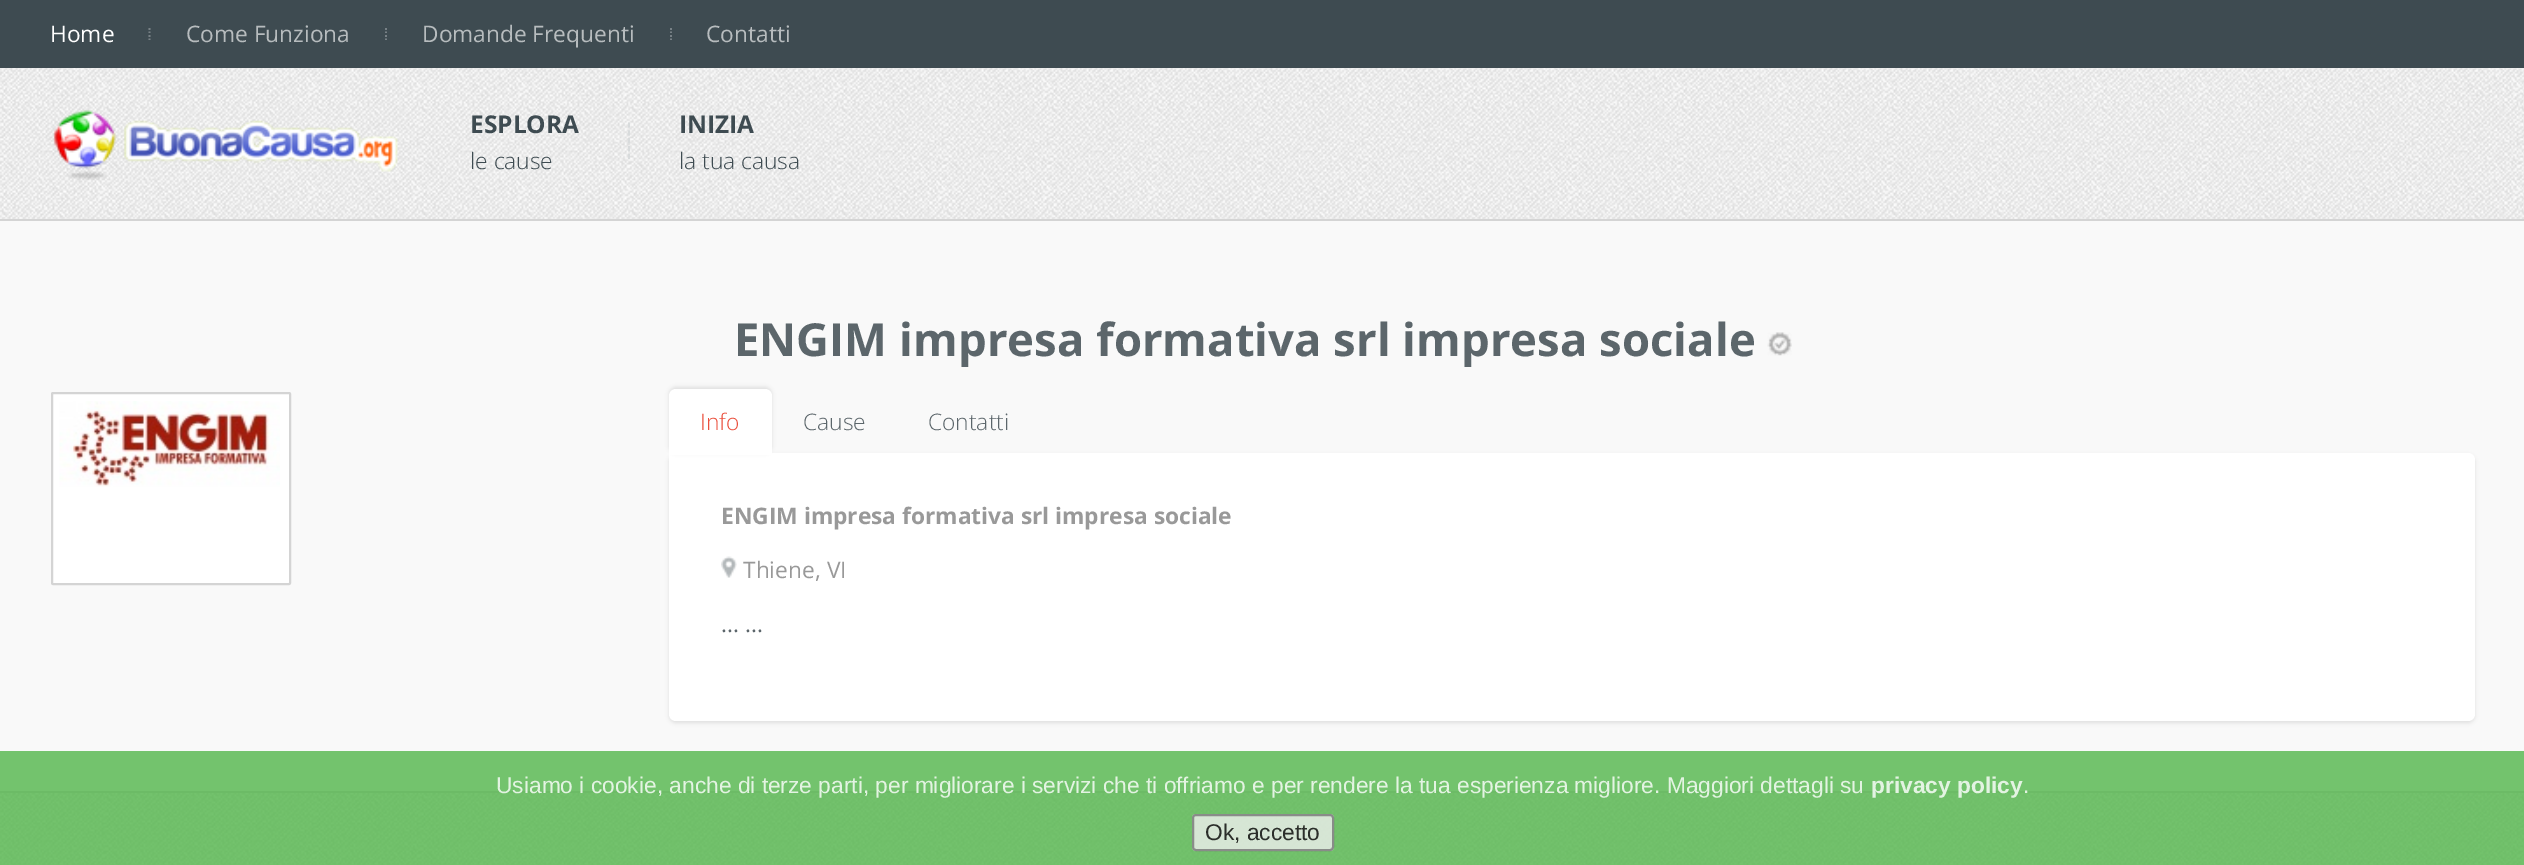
%!PS
<< /PageSize [2524 865] /PageUsesTransparency true >> setpagedevice
/rgb { dup -16 bitshift 255 div exch dup -8 bitshift 255 and 255 div exch 255 and 255 div setrgbcolor } def
/font { [ exch dup neg 0 0 3 -1 roll 0 0 ] selectfont } def
/text { moveto show } def
/alpha { dup .setfillconstantalpha .setstrokeconstantalpha } def
/roundrect { 5 dict begin { /r /h /w /y /x } { exch def } forall
  x r add y moveto x w add y 2 copy h add r arct x w add y h add x 1 index r arct
  x y h add x y r arct x y 2 copy exch w add exch r arct closepath end } def
/shadow { 12 dict begin { /a /b /q /h /w /y /x } { exch def } forall gsave /was 0 def
  9 -2 -9 { dup b mul 4 div /e exch def 1 sub .425 mul 2.718 exch exp 1 add a .99 .min exch div /now exch def
    1 1 now sub 1 was sub div sub alpha /was now def
    w h .min e 2 mul add 0 gt { x e sub y e sub w e 2 mul add h e 2 mul add
      q e add b .6 mul add w h .min 2 div e add .min 0 .max roundrect fill } if } for grestore end } def
/picture { 5 dict begin { /h /w /y /x /name } { exch def } forall
  gsave x y translate w h scale
  w h 8 [w 0 0 h 0 0] name (r) file false 3 colorimage grestore end } def
0 .pushpdf14devicefilter
0 865 translate 1 -1 scale
4 setmiterlimit
/s1 { /OpenSans-Regular 22.75 font 16#FFFFFF rgb } def
/s2 { /OpenSans-Regular 22.75 font 16#B7BCBE rgb } def
/s3 { /OpenSans-Bold 24.5 font 16#3E4B51 rgb } def
/s4 { /OpenSans-Light 22.75 font 16#3E4B51 rgb } def
/s5 { /OpenSans-Bold 45.5 font 16#5C666B rgb } def
/s6 { /OpenSans-Light 22.75 font 16#EA503D rgb } def
/s7 { /OpenSans-Light 22.75 font 16#5C666B rgb } def
/s8 { /OpenSans-Bold 22.75 font 16#999999 rgb } def
/s9 { /OpenSans-Regular 22.75 font 16#999999 rgb } def
/s10 { /OpenSans-Regular 22.75 font 16#5C666B rgb } def
/s11 { /LiberationSans-Regular 22.75 font 16#E3F3E2 rgb } def
/s12 { /LiberationSans-Bold 22.75 font 16#E3F3E2 rgb } def
/s13 { /LiberationSans-Regular 22.75 font 16#2B2E2A rgb } def
16#F9F9F9 rgb
0 0 2524 865 rectfill
16#73C36D rgb
0 751 2524 40 rectfill
(pic1.raw) 0 68 2524 151 picture
16#D4D4D4 rgb
0 219 2524 2 rectfill
16#3E4B51 rgb
0 0 2524 68 rectfill
s1
(Home) 50 42 text
16#788186 rgb
1.8 setlinewidth
149.5 28 moveto 149.5 30 lineto 149.5 31.5 moveto 149.5 33 lineto 149.5 35 moveto 149.5 37 lineto 149.5 38.5 moveto 149.5 40 lineto stroke
s2
(Come Funziona) 186 42 text
16#788186 rgb
386 28 moveto 386 30 lineto 386 31.5 moveto 386 33 lineto 386 35 moveto 386 37 lineto 386 38.5 moveto 386 40 lineto stroke
s2
(Domande Frequenti) 422 42 text
16#788186 rgb
671 28 moveto 671 30 lineto 671 31.5 moveto 671 33 lineto 671 35 moveto 671 37 lineto 671 38.5 moveto 671 40 lineto stroke
s2
(Contatti) 706 42 text
(pic2.raw) 53 110 345 70 picture
s3
(ESPLORA) 470 133 text
s4
(le cause) 470 169 text
16#D8DBDC rgb
[5.25 2.62] 0 setdash
629 122.5 moveto 629 159 lineto stroke
s3
(INIZIA) 679 133 text
s4
(la tua causa) 679 169 text
s5
(ENGIM impresa formativa srl impresa sociale) 734 356 text
(pic3.raw) 1767 332 25 24 picture
16#FFFFFF rgb
52 393 238 191 1 roundrect gsave fill grestore
16#D4D4D4 rgb
2 setlinewidth
[] 0 setdash
stroke
(pic4.raw) 59 401 221 86 picture
16#000000 rgb
669 455 1806 268 7 2 0.1 shadow
16#FFFFFF rgb
669 453 moveto 2468 453 lineto 2472 453 2475 456 2475 460 curveto 2475 714 lineto 2475 718 2472 721 2468 721 curveto 676 721 lineto 672 721 669 718 669 714 curveto closepath fill
16#000000 rgb
669 387 103 66 7 2 0.1 shadow
16#FFFFFF rgb
676 389 moveto 765 389 lineto 769 389 772 392 772 396 curveto 772 455 lineto 669 455 lineto 669 396 lineto 669 392 672 389 676 389 curveto closepath fill
s6
(Info) 700 430 text
s7
(Cause) 803 430 text
(Contatti) 928 430 text
s8
(ENGIM impresa formativa srl impresa sociale) 721 524 text
(pic5.raw) 721 556 16 22 picture
s9
(Thiene, VI) 743 578 text
s10
(... ...) 721 632 text
(pic6.raw) 0 793 2524 72 picture
16#6CBB66 rgb
0 791 2524 2 rectfill
s11
(Usiamo i cookie, anche di terze parti, per migliorare i servizi che ti offriamo e per rendere la tua esperienza migliore. Maggiori dettagli su) 496 793 text
s12
(privacy policy) 1871 793 text
s11
(.) 2023 793 text
0.8 alpha
16#EFEFEF rgb
1192 814 142 37 4 roundrect fill
16#767676 rgb
1193 815 140 35 3 roundrect stroke
1 alpha
s13
(Ok, accetto) 1205 840 text
.poppdf14devicefilter showpage
